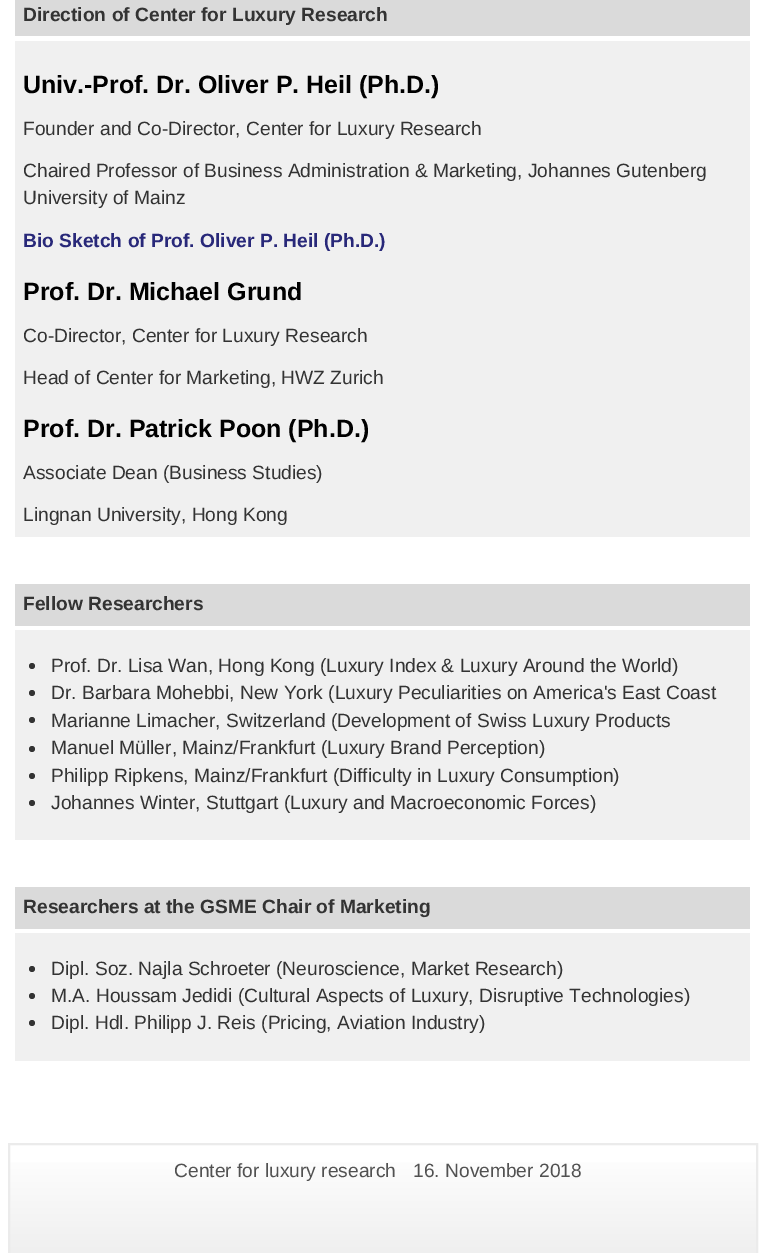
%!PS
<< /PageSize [764 1253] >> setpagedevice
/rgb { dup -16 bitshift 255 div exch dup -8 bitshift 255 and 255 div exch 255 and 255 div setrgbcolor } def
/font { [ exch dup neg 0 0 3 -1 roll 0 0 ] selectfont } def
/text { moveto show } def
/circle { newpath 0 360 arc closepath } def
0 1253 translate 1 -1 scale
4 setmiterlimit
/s1 { /LiberationSans-Bold 19.2 font 16#333333 rgb } def
/s2 { /LiberationSans-Bold 25 font 16#000000 rgb } def
/s3 { /LiberationSans-Regular 19.2 font 16#333333 rgb } def
/s4 { /LiberationSans-Bold 19.2 font 16#282879 rgb } def
/s5 { /LiberationSans-Regular 19.2 font 16#515151 rgb } def
16#FFFFFF rgb
0 0 764 1253 rectfill
16#DADADA rgb
15 0 735 36 rectfill
s1
(Direction of Center for Luxury Research) 23 21 text
16#F0F0F0 rgb
15 41 735 496 rectfill
s2
(Univ.-Prof. Dr. Oliver P. Heil \(Ph.D.\)) 23 93 text
s3
(Founder and Co-Director, Center for Luxury Research) 23 135 text
(Chaired Professor of Business Administration & Marketing, Johannes Gutenberg) 23 177 text
(University of Mainz) 23 204 text
s4
(Bio Sketch of Prof. Oliver P. Heil \(Ph.D.\)) 23 247 text
s2
(Prof. Dr. Michael Grund) 23 300 text
s3
(Co-Director, Center for Luxury Research) 23 342 text
(Head of Center for Marketing, HWZ Zurich) 23 384 text
s2
(Prof. Dr. Patrick Poon \(Ph.D.\)) 23 437 text
s3
(Associate Dean \(Business Studies\)) 23 479 text
(Lingnan University, Hong Kong) 23 521 text
16#DADADA rgb
15 584 735 42 rectfill
s1
(Fellow Researchers) 23 610 text
16#F0F0F0 rgb
15 630 735 210 rectfill
16#333333 rgb
32 666 3 circle fill
s3
(Prof. Dr. Lisa Wan, Hong Kong \(Luxury Index & Luxury Around the World\)) 51 672 text
32 693 3 circle fill
(Dr. Barbara Mohebbi, New York \(Luxury Peculiarities on America's East Coast) 51 699 text
32 720 3 circle fill
(Marianne Limacher, Switzerland \(Development of Swiss Luxury Products) 51 727 text
32 749 3 circle fill
(Manuel Müller, Mainz/Frankfurt \(Luxury Brand Perception\)) 51 754 text
32 776 3 circle fill
(Philipp Ripkens, Mainz/Frankfurt \(Difficulty in Luxury Consumption\)) 51 782 text
32 803 3 circle fill
(Johannes Winter, Stuttgart \(Luxury and Macroeconomic Forces\)) 51 809 text
16#DADADA rgb
15 887 735 42 rectfill
s1
(Researchers at the GSME Chair of Marketing) 23 913 text
16#F0F0F0 rgb
15 933 735 128 rectfill
16#333333 rgb
32 969 3 circle fill
s3
(Dipl. Soz. Najla Schroeter \(Neuroscience, Market Research\)) 51 975 text
32 996 3 circle fill
(M.A. Houssam Jedidi \(Cultural Aspects of Luxury, Disruptive Technologies\)) 51 1002 text
32 1023 3 circle fill
(Dipl. Hdl. Philipp J. Reis \(Pricing, Aviation Industry\)) 51 1029 text
gsave 10 1162 moveto 756 1162 lineto 756 1253 lineto 10 1253 lineto closepath clip newpath
<< /ShadingType 2 /ColorSpace /DeviceRGB /Coords [383 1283 383 1145] /Extend [true true] /Function << /FunctionType 2 /Domain [0 1] /C0 [0.922 0.922 0.922] /C1 [1 1 1] /N 1 >> >> shfill grestore
16#EBEBEB rgb
2 setlinewidth
9 1144 748 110 rectstroke
s5
(Center for luxury research) 174 1177 text
(16. November 2018) 413 1177 text
showpage
